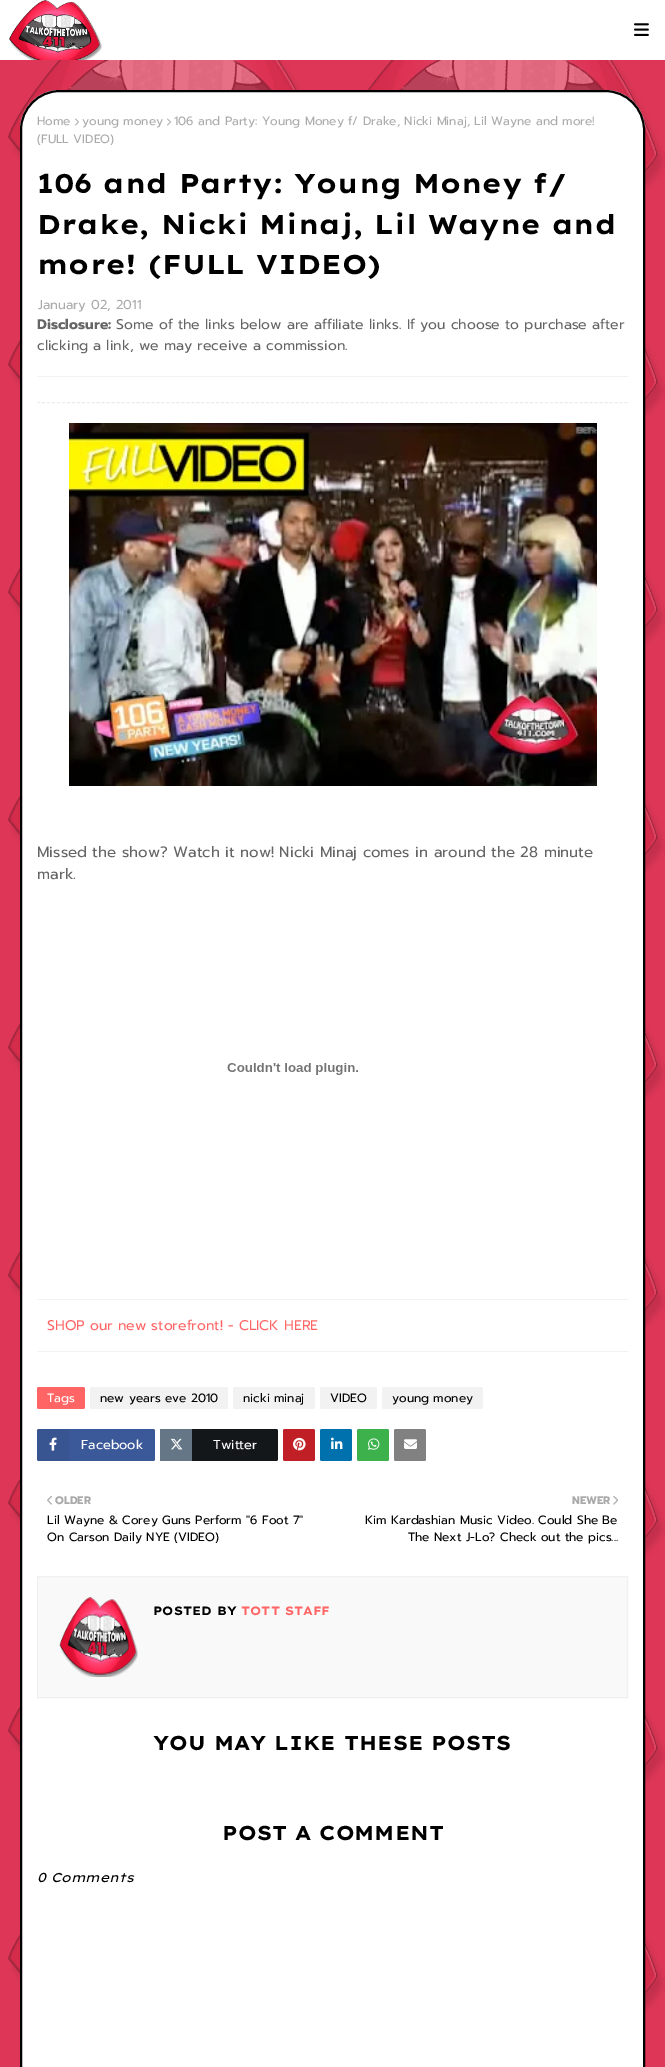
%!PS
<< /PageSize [665 2067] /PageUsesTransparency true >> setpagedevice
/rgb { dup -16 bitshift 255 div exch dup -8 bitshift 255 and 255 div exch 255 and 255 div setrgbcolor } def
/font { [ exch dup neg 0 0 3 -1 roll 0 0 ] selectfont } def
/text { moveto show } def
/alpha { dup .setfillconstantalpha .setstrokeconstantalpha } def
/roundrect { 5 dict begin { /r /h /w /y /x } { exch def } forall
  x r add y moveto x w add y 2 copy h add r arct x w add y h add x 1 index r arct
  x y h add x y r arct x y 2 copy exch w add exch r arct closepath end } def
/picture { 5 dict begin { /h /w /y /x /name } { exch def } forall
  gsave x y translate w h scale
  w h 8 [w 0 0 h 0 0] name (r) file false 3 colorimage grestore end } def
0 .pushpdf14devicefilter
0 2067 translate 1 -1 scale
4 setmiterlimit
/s1 { /Prompt-Regular 12 font 16#AAAAAA rgb } def
/s2 { /LexendExa-Bold 27 font 16#000000 rgb } def
/s3 { /Prompt-Regular 13 font 16#AAAAAA rgb } def
/s4 { /Prompt-Bold 14 font 16#656565 rgb } def
/s5 { /Prompt-Regular 14 font 16#656565 rgb } def
/s6 { /Prompt-Regular 15 font 16#656565 rgb } def
/s7 { /Prompt-Regular 14 font 16#FF6565 rgb } def
/s8 { /Prompt-Regular 12 font 16#FFFFFF rgb } def
/s9 { /Prompt-Regular 12 font 16#000000 rgb } def
/s10 { /Prompt-Regular 13 font 16#FFFFFF rgb } def
/s11 { /Prompt-Bold 11 font 16#AAAAAA rgb } def
/s12 { /LexendExa-Bold 12 font 16#000000 rgb } def
/s13 { /LexendExa-Bold 12 font 16#FF6565 rgb } def
/s14 { /LexendExa-Bold 20 font 16#000000 rgb } def
/s15 { /LexendExa-Italic 13 font 16#000000 rgb } def
16#DD3656 rgb
0 0 665 2067 rectfill
(pic1.raw) 7 60 658 1951 picture
16#FFFFFF rgb
0 0 665 60 rectfill
(pic2.raw) 9 0 93 60 picture
(pic3.raw) 634 23 15 13 picture
20 90 625 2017 40 roundrect fill
16#F2F2F2 rgb
320 1429 32 32 rectfill
16#000000 rgb
2 setlinewidth
21 91 623 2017 39 roundrect stroke
s1
(Home) 37 125 text
(pic4.raw) 75 118 4 8 picture
(young money) 82 125 text
(pic4.raw) 167 118 4 8 picture
(106 and Party: Young Money f/ Drake, Nicki Minaj, Lil Wayne and more!) 174 125 text
(\(FULL VIDEO\)) 37 143 text
s2
(106 and Party: Young Money f/) 37 193 text
(Drake, Nicki Minaj, Lil Wayne and) 37 234 text
(more! \(FULL VIDEO\)) 37 274 text
s3
(January 02, 2011) 38 309 text
s4
(Disclosure:) 37 329 text
s5
(Some of the links below are affiliate links. If you choose to purchase after) 116 329 text
(clicking a link, we may receive a commission.) 37 350 text
16#F2F2F6 rgb
37 376 591 1 rectfill
16#EBEBEB rgb
1 setlinewidth
[3 1.98] 0 setdash
37 402.5 moveto 628 402.5 lineto stroke
(pic5.raw) 69 423 528 363 picture
s6
(Missed the show? Watch it now! Nicki Minaj comes in around the 28 minute) 37 857 text
(mark.) 37 879 text
(pic6.raw) 227 1063 131 12 picture
16#F2F2F6 rgb
37 1299 591 1 rectfill
37 1351 591 1 rectfill
s7
(SHOP our new storefront! - CLICK HERE) 47 1330 text
37 1387 48 22 2 roundrect fill
s8
(Tags) 47 1402 text
16#F2F2F2 rgb
90 1387 138 22 2 roundrect fill
s9
(new years eve 2010) 100 1402 text
16#F2F2F2 rgb
233 1387 82 22 2 roundrect fill
s9
(nicki minaj) 243 1402 text
16#F2F2F2 rgb
320 1387 57 22 2 roundrect fill
s9
(VIDEO) 330 1402 text
16#F2F2F2 rgb
382 1387 101 22 2 roundrect fill
s9
(young money) 392 1402 text
16#3B5999 rgb
37 1429 118 32 2 roundrect fill
0.05 alpha
16#000000 rgb
37 1429 32 32 rectfill
1 alpha
(pic7.raw) 49 1437 8 14 picture
s10
(Facebook) 81 1449 text
16#14171A rgb
160 1429 118 32 2 roundrect fill
16#657786 rgb
160 1429 32 32 rectfill
(pic8.raw) 170 1438 13 12 picture
s10
(Twitter) 213 1449 text
16#CA2127 rgb
283 1429 32 32 2 roundrect fill
0.05 alpha
16#000000 rgb
283 1429 32 32 rectfill
1 alpha
(pic9.raw) 293 1437 13 14 picture
16#0071AC rgb
320 1429 32 32 2 roundrect fill
(pic10.raw) 331 1437 12 12 picture
16#3FBB50 rgb
357 1429 32 32 2 roundrect fill
0.05 alpha
16#000000 rgb
357 1429 32 32 rectfill
1 alpha
(pic11.raw) 368 1438 12 12 picture
16#888888 rgb
394 1429 32 32 2 roundrect fill
0.05 alpha
16#000000 rgb
394 1429 32 32 rectfill
1 alpha
(pic12.raw) 404 1439 13 10 picture
(pic13.raw) 47 1496 5 9 picture
s11
(OLDER) 55 1504 text
s9
(Lil Wayne & Corey Guns Perform "6 Foot 7") 47 1524 text
(On Carson Daily NYE \(VIDEO\)) 47 1541 text
s11
(NEWER) 572 1504 text
(pic14.raw) 613 1496 5 9 picture
s9
(Kim Kardashian Music Video. Could She Be) 365 1524 text
(The Next J-Lo? Check out the pics...) 408 1541 text
16#F9F9F9 rgb
37.5 1576.5 moveto 627.5 1576.5 lineto 627.5 1697.5 lineto 37.5 1697.5 lineto closepath gsave fill grestore
16#F0F0F0 rgb
[] 0 setdash
stroke
(pic15.raw) 59 1597 79 80 picture
s12
(POSTED BY) 153 1615 text
s13
(TOTT STAFF) 241 1615 text
s14
(YOU MAY LIKE THESE POSTS) 153 1750 text
(POST A COMMENT) 222 1840 text
s15
(0 Comments) 37 1882 text
.poppdf14devicefilter showpage
